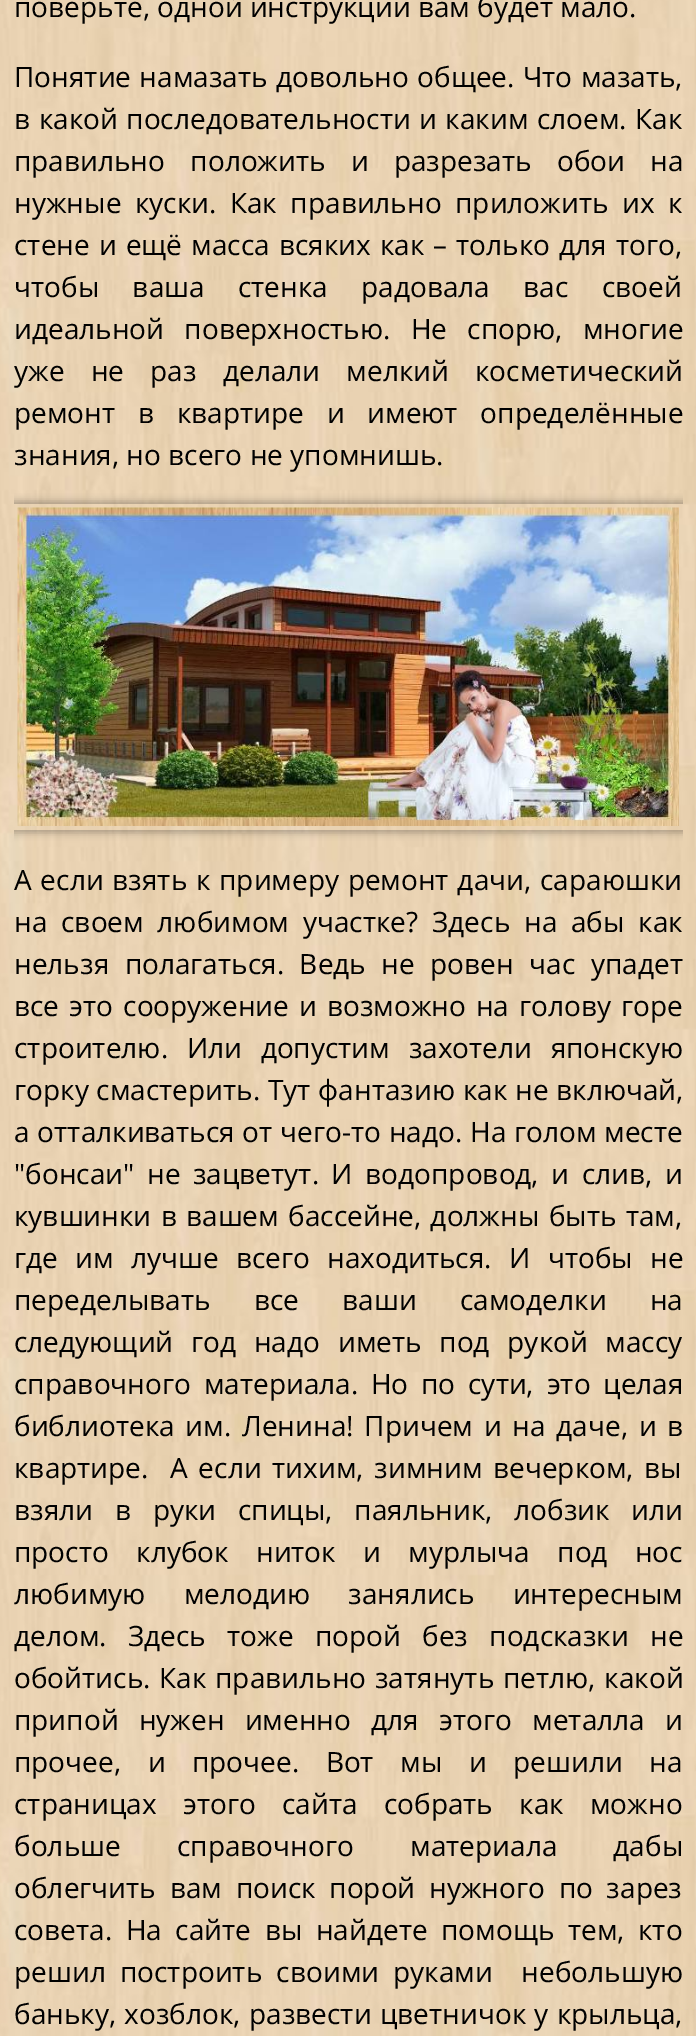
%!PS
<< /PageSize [696 2036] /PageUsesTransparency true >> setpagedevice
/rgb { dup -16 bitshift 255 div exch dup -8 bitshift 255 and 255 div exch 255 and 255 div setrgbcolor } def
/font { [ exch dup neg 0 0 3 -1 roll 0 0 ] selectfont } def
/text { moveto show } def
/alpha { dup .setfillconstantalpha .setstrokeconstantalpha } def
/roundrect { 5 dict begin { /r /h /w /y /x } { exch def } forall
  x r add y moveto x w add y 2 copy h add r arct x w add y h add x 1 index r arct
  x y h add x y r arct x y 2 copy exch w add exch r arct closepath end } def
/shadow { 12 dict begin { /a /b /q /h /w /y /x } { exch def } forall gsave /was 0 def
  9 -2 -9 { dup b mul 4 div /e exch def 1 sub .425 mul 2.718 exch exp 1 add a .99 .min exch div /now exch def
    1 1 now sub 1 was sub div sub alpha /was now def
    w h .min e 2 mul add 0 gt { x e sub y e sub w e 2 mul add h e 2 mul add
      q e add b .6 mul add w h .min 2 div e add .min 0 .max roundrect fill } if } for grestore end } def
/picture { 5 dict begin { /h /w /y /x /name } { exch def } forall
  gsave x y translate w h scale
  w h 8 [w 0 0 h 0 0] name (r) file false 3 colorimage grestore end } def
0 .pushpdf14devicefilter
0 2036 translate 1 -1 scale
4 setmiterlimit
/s1 { /OpenSans-Regular 28 font 16#000000 rgb } def
16#FFFFFF rgb
0 0 696 2036 rectfill
(pic1.raw) 0 0 696 2036 picture
s1
(поверьте, одной инструкции вам будет мало.) 14 17 text
14 87 moveto 1 0 32 (Понятие намазать довольно общее. Что мазать,) widthshow
14 129 moveto 1.25 0 32 (в какой последовательности и каким слоем. Как) widthshow
14 171 moveto 18 0 32 (правильно положить и разрезать обои на) widthshow
14 213 moveto 6.25 0 32 (нужные куски. Как правильно приложить их к) widthshow
14 255 moveto 1.75 0 32 (стене и ещё масса всяких как – только для того,) widthshow
14 297 moveto 26 0 32 (чтобы ваша стенка радовала вас своей) widthshow
14 339 moveto 13 0 32 (идеальной поверхностью. Не спорю, многие) widthshow
14 381 moveto 19 0 32 (уже не раз делали мелкий косметический) widthshow
14 423 moveto 15.5 0 32 (ремонт в квартире и имеют определённые) widthshow
(знания, но всего не упомнишь.) 14 465 text
gsave
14 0 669 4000 rectclip
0 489 moveto 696 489 lineto 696 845 lineto 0 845 lineto closepath 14 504 moveto 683 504 lineto 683 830 lineto 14 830 lineto closepath eoclip newpath
11 501 675 332 0 3.5 0.25 shadow
grestore
(pic2.raw) 17 507 662 319 picture
14 890 moveto 1.5 0 32 (А если взять к примеру ремонт дачи, сараюшки) widthshow
14 932 moveto 6.5 0 32 (на своем любимом участке? Здесь на абы как) widthshow
14 974 moveto 8.25 0 32 (нельзя полагаться. Ведь не ровен час упадет) widthshow
14 1016 moveto 2.75 0 32 (все это сооружение и возможно на голову горе) widthshow
14 1058 moveto 11.5 0 32 (строителю. Или допустим захотели японскую) widthshow
14 1100 moveto 0.5 0 32 (горку смастерить. Тут фантазию как не включай,) widthshow
14 1142 moveto 0.5 0 32 (а отталкиваться от чего-то надо. На голом месте) widthshow
14 1184 moveto 5.25 0 32 ("бонсаи" не зацветут. И водопровод, и слив, и) widthshow
14 1226 moveto 2 0 32 (кувшинки в вашем бассейне, должны быть там,) widthshow
14 1268 moveto 10 0 32 (где им лучше всего находиться. И чтобы не) widthshow
14 1310 moveto 36 0 32 (переделывать все ваши самоделки на) widthshow
14 1352 moveto 10.5 0 32 (следующий год надо иметь под рукой массу) widthshow
14 1394 moveto 5.5 0 32 (справочного материала. Но по сути, это целая) widthshow
14 1436 moveto 3.5 0 32 (библиотека им. Ленина! Причем и на даче, и в) widthshow
14 1478 moveto 3.5 0 32 (квартире.  А если тихим, зимним вечерком, вы) widthshow
14 1520 moveto 14.5 0 32 (взяли в руки спицы, паяльник, лобзик или) widthshow
14 1562 moveto 20 0 32 (просто клубок ниток и мурлыча под нос) widthshow
14 1604 moveto 31 0 32 (любимую мелодию занялись интересным) widthshow
14 1646 moveto 14 0 32 (делом. Здесь тоже порой без подсказки не) widthshow
14 1688 moveto 1.5 0 32 (обойтись. Как правильно затянуть петлю, какой) widthshow
14 1730 moveto 13 0 32 (припой нужен именно для этого металла и) widthshow
14 1772 moveto 19.25 0 32 (прочее, и прочее. Вот мы и решили на) widthshow
14 1814 moveto 19 0 32 (страницах этого сайта собрать как можно) widthshow
14 1856 moveto 49 0 32 (больше справочного материала дабы) widthshow
14 1898 moveto 6.5 0 32 (облегчить вам поиск порой нужного по зарез) widthshow
14 1940 moveto 6.25 0 32 (совета. На сайте вы найдете помощь тем, кто) widthshow
14 1982 moveto 7 0 32 (решил построить своими руками  небольшую) widthshow
14 2024 moveto 1 0 32 (баньку, хозблок, развести цветничок у крыльца,) widthshow
.poppdf14devicefilter showpage
